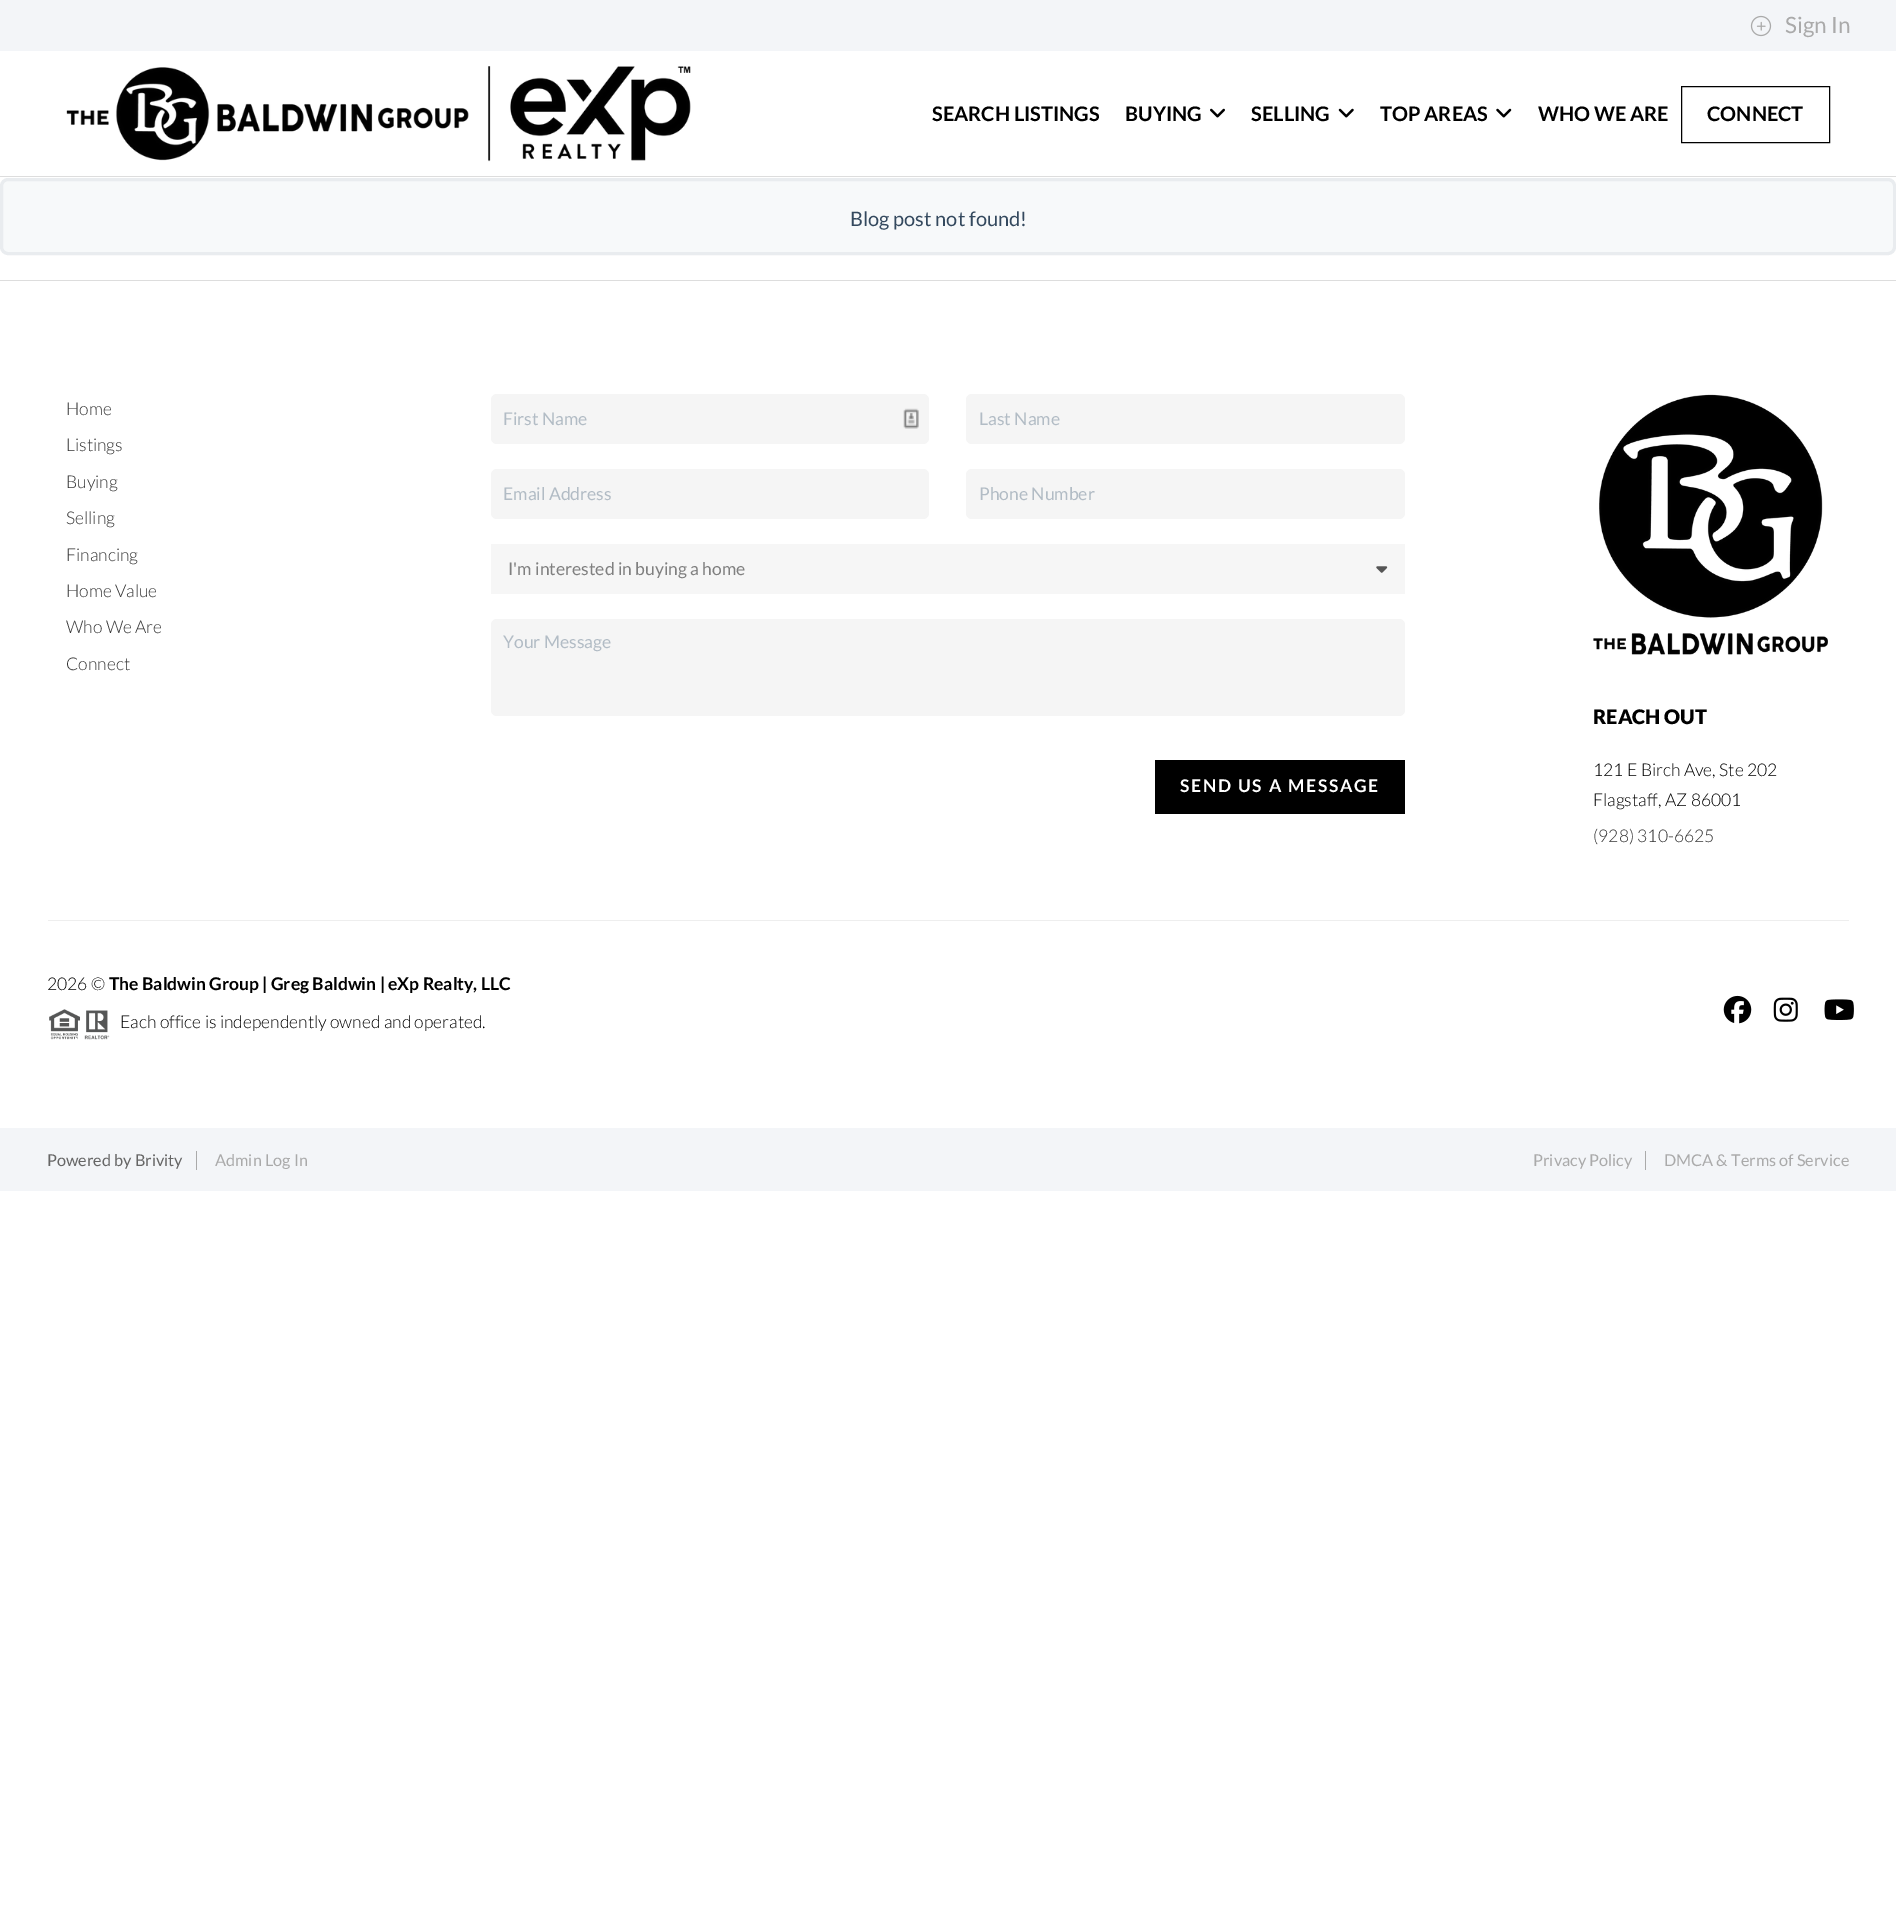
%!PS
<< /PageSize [1896 1912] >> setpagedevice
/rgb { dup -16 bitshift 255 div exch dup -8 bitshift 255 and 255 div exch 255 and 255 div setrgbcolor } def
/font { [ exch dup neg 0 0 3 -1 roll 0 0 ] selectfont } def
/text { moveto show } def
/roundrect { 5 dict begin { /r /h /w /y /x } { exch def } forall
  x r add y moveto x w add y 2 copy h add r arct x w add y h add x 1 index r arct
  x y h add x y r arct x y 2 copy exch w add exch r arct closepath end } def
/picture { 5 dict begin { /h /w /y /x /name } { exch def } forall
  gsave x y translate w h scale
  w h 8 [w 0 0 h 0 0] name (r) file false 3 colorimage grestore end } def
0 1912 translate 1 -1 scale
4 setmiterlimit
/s1 { /Lato-Regular 22.5 font 16#AAAAAA rgb } def
/s2 { /Lato-Bold 20 font 16#000000 rgb } def
/s3 { /Lato-Regular 20 font 16#34495E rgb } def
/s4 { /Lato-Light 17.5 font 16#333333 rgb } def
/s5 { /Lato-Regular 17.5 font 16#B2BCC5 rgb } def
/s6 { /Lato-Regular 17.5 font 16#808080 rgb } def
/s7 { /Lato-Black 20 font 16#000000 rgb } def
/s8 { /Lato-Light 17.5 font 16#000000 rgb } def
/s9 { /Lato-Bold 17.5 font 16#000000 rgb } def
/s10 { /Lato-Regular 16.25 font 16#666666 rgb } def
/s11 { /Lato-Regular 16.25 font 16#AAAAAA rgb } def
16#FFFFFF rgb
0 0 1896 1912 rectfill
16#F3F5F8 rgb
0 0 1896 51 rectfill
(pic1.raw) 1750 15 22 22 picture
s1
(Sign In) 1785 33 text
16#DDDDDD rgb
0 176 1896 1 rectfill
(pic2.raw) 66 66 625 96 picture
s2
(SEARCH LISTINGS) 932 121 text
(BUYING) 1125 121 text
(pic3.raw) 1210 108 15 10 picture
(SELLING) 1251 121 text
(pic4.raw) 1338 108 16 10 picture
(TOP AREAS) 1380 121 text
(pic5.raw) 1496 108 16 10 picture
(WHO WE ARE) 1538 121 text
1681.5 86.5 148 56 rectstroke
(CONNECT) 1707 121 text
16#F7F9FA rgb
1.5 179.5 1893 74 6.5 roundrect gsave fill grestore
16#E9ECEF rgb
3 setlinewidth
stroke
s3
(Blog post not found!) 850 226 text
16#DDDDDD rgb
0 280 1896 1 rectfill
s4
(Home) 66 415 text
(Listings) 66 451 text
(Buying) 66 488 text
(Selling) 66 524 text
(Financing) 66 561 text
(Home Value) 66 597 text
(Who We Are) 66 633 text
(Connect) 66 670 text
16#F5F5F5 rgb
491 394 438 50 6 roundrect fill
(pic6.raw) 903 408 16 21 picture
s5
(First Name) 503 425 text
16#F5F5F5 rgb
966 394 439 50 6 roundrect fill
s5
(Last Name) 979 425 text
16#F5F5F5 rgb
491 469 438 50 6 roundrect fill
s5
(Email Address) 503 500 text
16#F5F5F5 rgb
966 469 439 50 6 roundrect fill
s5
(Phone Number) 979 500 text
16#F6F6F6 rgb
491 544 914 50 rectfill
s6
(I'm interested in buying a home) 508 575 text
(pic7.raw) 1376 566 12 7 picture
16#F5F5F5 rgb
491 619 914 97 6 roundrect fill
s5
(Your Message) 503 648 text
16#000000 rgb
1155 760 250 54 rectfill
/Lato-Bold 17.5 font
16#FFFFFF rgb
1180 792 moveto 1.75 0 (SEND US A MESSAGE) ashow
(pic8.raw) 1593 394 235 261 picture
s7
(REACH OUT) 1593 724 text
s8
(121 E Birch Ave, Ste 202) 1593 776 text
(Flagstaff, AZ 86001) 1593 806 text
s4
(\(928\) 310-6625) 1593 842 text
16#EEEEEE rgb
48 920 1801 1 rectfill
s8
(2026 ©) 47 990 text
s9
(The Baldwin Group | Greg Baldwin | eXp Realty, LLC) 109 990 text
(pic9.raw) 49 1009 61 31 picture
s8
(Each office is independently owned and operated.) 120 1028 text
(pic10.raw) 1723 995 29 29 picture
(pic11.raw) 1773 997 25 25 picture
(pic12.raw) 1824 999 30 21 picture
16#F3F5F8 rgb
0 1128 1896 63 rectfill
s10
(Powered by Brivity) 47 1166 text
16#AAAAAA rgb
196 1151 1 19 rectfill
(Admin Log In) 215 1166 text
(Privacy Policy) 1533 1166 text
1645 1151 1 19 rectfill
(DMCA & Terms of Service) 1664 1166 text
showpage
